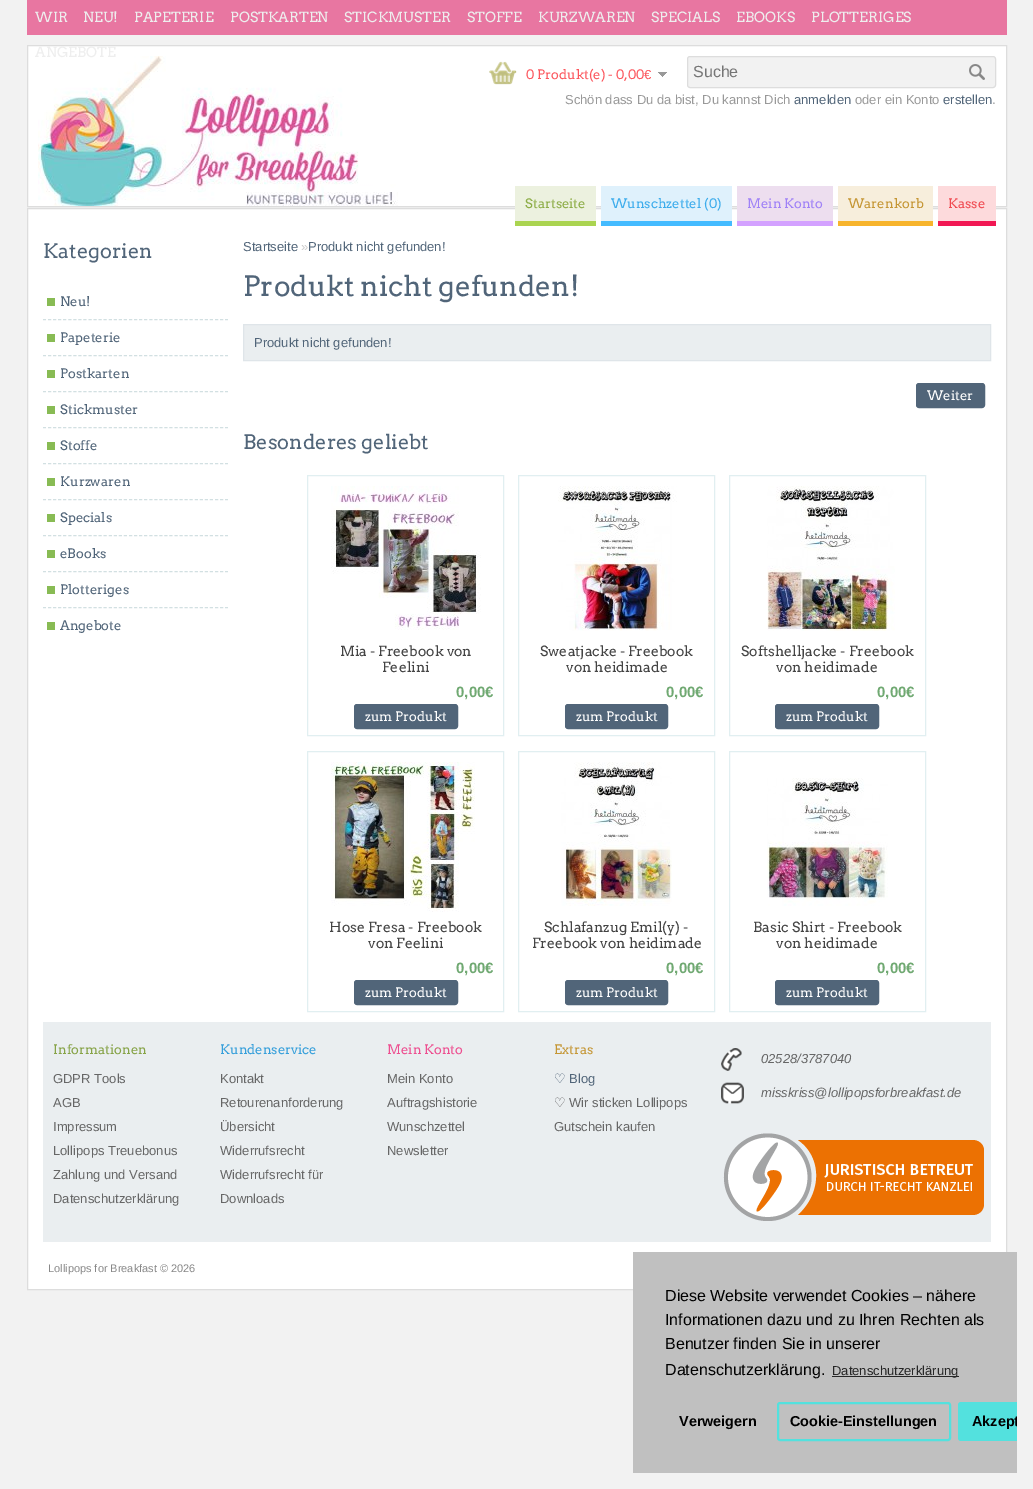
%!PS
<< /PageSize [1033 1489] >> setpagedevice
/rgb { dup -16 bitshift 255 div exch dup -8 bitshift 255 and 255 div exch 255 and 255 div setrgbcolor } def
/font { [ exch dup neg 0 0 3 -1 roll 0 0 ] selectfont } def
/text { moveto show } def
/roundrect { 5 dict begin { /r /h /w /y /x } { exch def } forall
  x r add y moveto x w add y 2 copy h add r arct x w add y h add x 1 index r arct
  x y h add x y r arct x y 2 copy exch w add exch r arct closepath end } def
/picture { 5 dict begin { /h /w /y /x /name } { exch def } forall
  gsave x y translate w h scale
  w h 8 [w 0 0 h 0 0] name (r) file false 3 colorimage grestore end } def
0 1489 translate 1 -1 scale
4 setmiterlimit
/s1 { /Arvo-Regular 14 font 16#EEEEEE rgb } def
/s2 { /Arvo-Regular 13 font 16#FC575E rgb } def
/s3 { /LiberationSans-Regular 13 font 16#FC575E rgb } def
/s4 { /LiberationSans-Regular 16 font 16#757575 rgb } def
/s5 { /LiberationSans-Regular 13 font 16#999999 rgb } def
/s6 { /LiberationSans-Regular 13 font 16#516579 rgb } def
/s7 { /Arvo-Regular 13 font 16#8DAD47 rgb } def
/s8 { /Arvo-Regular 13 font 16#3CACEC rgb } def
/s9 { /Arvo-Regular 13 font 16#9F81F7 rgb } def
/s10 { /Arvo-Regular 13 font 16#C59634 rgb } def
/s11 { /Arvo-Regular 13 font 16#F04A51 rgb } def
/s12 { /Arvo-Regular 20 font 16#516579 rgb } def
/s13 { /Arvo-Regular 13 font 16#516579 rgb } def
/s14 { /LiberationSans-Regular 13 font 16#CCCCCC rgb } def
/s15 { /Arvo-Regular 28 font 16#516579 rgb } def
/s16 { /Arvo-Regular 13 font 16#FFFFFF rgb } def
/s17 { /Arvo-Regular 14 font 16#444444 rgb } def
/s18 { /LiberationSans-Bold 15 font 16#70A972 rgb } def
/s19 { /Arvo-Regular 13 font 16#86A346 rgb } def
/s20 { /LiberationSans-Regular 13 font 16#666666 rgb } def
/s21 { /Arvo-Regular 13 font 16#359FDB rgb } def
/s22 { /Arvo-Regular 13 font 16#EE4E90 rgb } def
/s23 { /DejaVuSans-Regular 13 font 16#516579 rgb } def
/s24 { /DejaVuSans-Regular 13 font 16#666666 rgb } def
/s25 { /LiberationSans-Italic 13 font 16#666666 rgb } def
/s26 { /LiberationSans-Regular 11 font 16#888888 rgb } def
/s27 { /LiberationSans-Regular 16 font 16#000000 rgb } def
/s28 { /LiberationSans-Regular 13 font 16#262626 rgb } def
/s29 { /LiberationSans-Bold 14.4 font 16#000000 rgb } def
16#F2F2F2 rgb
0 0 1033 1489 rectfill
16#E876A1 rgb
27 0 980 35 rectfill
s1
(WIR) 35 22 text
(NEU!) 83 22 text
(PAPETERIE) 134 22 text
(POSTKARTEN) 230 22 text
(STICKMUSTER) 344 22 text
(STOFFE) 467 22 text
(KURZWAREN) 538 22 text
(SPECIALS) 651 22 text
(EBOOKS) 736 22 text
(PLOTTERIGES) 811 22 text
16#FFFFFF rgb
27.5 45.5 moveto 1006.5 45.5 lineto 1006.5 206.5 lineto 27.5 206.5 lineto closepath gsave fill grestore
16#DDDDDD rgb
stroke
(pic1.raw) 38 56 360 150 picture
s1
(ANGEBOTE) 35 57 text
(pic2.raw) 489 61 28 24 picture
s2
(0 Produkt\(e\) - 0,00) 526 79 text
s3
(€) 644 79 text
(pic3.raw) 658 72 9 5 picture
16#F2F2F2 rgb
687.5 56.5 308 31 2.5 roundrect gsave fill grestore
16#DDDDDD rgb
stroke
s4
(Suche) 693 77 text
(pic4.raw) 969 64 16 16 picture
s5
(Schön dass Du da bist, Du kannst Dich) 565 104 text
s6
(anmelden) 794 104 text
s5
(oder ein Konto) 855 104 text
s6
(erstellen) 943 104 text
s5
(.) 992 104 text
16#FFFFFF rgb
27.5 208.5 moveto 1006.5 208.5 lineto 1006.5 1289.5 lineto 27.5 1289.5 lineto closepath gsave fill grestore
16#DDDDDD rgb
stroke
16#ECF1DF rgb
515 186 81 35 rectfill
16#AAD450 rgb
515 221 81 5 rectfill
s7
(Startseite) 525 208 text
16#DFF1FC rgb
601 186 131 35 rectfill
16#44BBFF rgb
601 221 131 5 rectfill
s8
(Wunschzettel \(0\)) 611 208 text
16#EDDEEF rgb
737 186 96 35 rectfill
16#D3A1FF rgb
737 221 96 5 rectfill
s9
(Mein Konto) 747 208 text
16#F7EEDC rgb
838 186 95 35 rectfill
16#F7B42C rgb
838 221 95 5 rectfill
s10
(Warenkorb) 848 208 text
16#FDDADC rgb
938 186 58 35 rectfill
16#F11753 rgb
938 221 58 5 rectfill
s11
(Kasse) 948 208 text
s12
(Kategorien) 43 258 text
s13
(Neu!) 60 306 text
16#88BB54 rgb
47 298 8 8 rectfill
16#D2E0E2 rgb
[3 2.06] 0 setdash
43 319.5 moveto 228 319.5 lineto stroke
s13
(Papeterie) 60 342 text
16#88BB54 rgb
47 334 8 8 rectfill
16#D2E0E2 rgb
43 355.5 moveto 228 355.5 lineto stroke
s13
(Postkarten) 60 378 text
16#88BB54 rgb
47 370 8 8 rectfill
16#D2E0E2 rgb
43 391.5 moveto 228 391.5 lineto stroke
s13
(Stickmuster) 60 414 text
16#88BB54 rgb
47 406 8 8 rectfill
16#D2E0E2 rgb
43 427.5 moveto 228 427.5 lineto stroke
s13
(Stoffe) 60 450 text
16#88BB54 rgb
47 442 8 8 rectfill
16#D2E0E2 rgb
43 463.5 moveto 228 463.5 lineto stroke
s13
(Kurzwaren) 60 486 text
16#88BB54 rgb
47 478 8 8 rectfill
16#D2E0E2 rgb
43 499.5 moveto 228 499.5 lineto stroke
s13
(Specials) 60 522 text
16#88BB54 rgb
47 514 8 8 rectfill
16#D2E0E2 rgb
43 535.5 moveto 228 535.5 lineto stroke
s13
(eBooks) 60 558 text
16#88BB54 rgb
47 550 8 8 rectfill
16#D2E0E2 rgb
43 571.5 moveto 228 571.5 lineto stroke
s13
(Plotteriges) 60 594 text
16#88BB54 rgb
47 586 8 8 rectfill
16#D2E0E2 rgb
43 607.5 moveto 228 607.5 lineto stroke
s13
(Angebote) 60 630 text
16#88BB54 rgb
47 622 8 8 rectfill
s6
(Startseite) 243 251 text
s14
(») 301 251 text
s6
(Produkt nicht gefunden!) 308 251 text
s15
(Produkt nicht gefunden!) 243 296 text
16#EAEEF0 rgb
243.5 324.5 moveto 990.5 324.5 lineto 990.5 360.5 lineto 243.5 360.5 lineto closepath gsave fill grestore
16#DFE5E9 rgb
[] 0 setdash
stroke
s6
(Produkt nicht gefunden!) 254 347 text
916.5 383.5 68 24 2.5 roundrect gsave fill grestore
stroke
s16
(Weiter) 927 400 text
s12
(Besonderes geliebt) 243 449 text
16#E1EFF1 rgb
307.5 475.5 196 260 rectstroke
(pic5.raw) 331 486 150 144 picture
s17
(Mia - Freebook von) 340 656 text
(Feelini) 382 672 text
s18
(0,00€) 456 697 text
16#516579 rgb
354.5 704.5 103 24 2.5 roundrect gsave fill grestore
stroke
s16
(zum Produkt) 365 721 text
16#E1EFF1 rgb
518.5 475.5 196 260 rectstroke
(pic6.raw) 558 486 119 145 picture
s17
(Sweatjacke - Freebook) 540 656 text
(von heidimade) 566 672 text
s18
(0,00€) 666 697 text
16#516579 rgb
565.5 704.5 102 24 2.5 roundrect gsave fill grestore
stroke
s16
(zum Produkt) 576 721 text
16#E1EFF1 rgb
729.5 475.5 196 260 rectstroke
(pic7.raw) 767 486 128 145 picture
s17
(Softshelljacke - Freebook) 741 656 text
(von heidimade) 776 672 text
s18
(0,00€) 877 697 text
16#516579 rgb
775.5 704.5 103 24 2.5 roundrect gsave fill grestore
stroke
s16
(zum Produkt) 786 721 text
16#E1EFF1 rgb
307.5 751.5 196 260 rectstroke
(pic8.raw) 331 762 144 150 picture
s17
(Hose Fresa - Freebook) 329 932 text
(von Feelini) 368 948 text
s18
(0,00€) 456 973 text
16#516579 rgb
354.5 980.5 103 24 2.5 roundrect gsave fill grestore
stroke
s16
(zum Produkt) 365 997 text
16#E1EFF1 rgb
518.5 751.5 196 260 rectstroke
(pic9.raw) 561 762 111 144 picture
s17
(Schlafanzug Emil\(y\) -) 544 932 text
(Freebook von heidimade) 532 948 text
s18
(0,00€) 666 973 text
16#516579 rgb
565.5 980.5 102 24 2.5 roundrect gsave fill grestore
stroke
s16
(zum Produkt) 576 997 text
16#E1EFF1 rgb
729.5 751.5 196 260 rectstroke
(pic10.raw) 767 778 121 128 picture
s17
(Basic Shirt - Freebook) 753 932 text
(von heidimade) 776 948 text
s18
(0,00€) 877 973 text
16#516579 rgb
775.5 980.5 103 24 2.5 roundrect gsave fill grestore
stroke
s16
(zum Produkt) 786 997 text
16#EAEEF0 rgb
43 1022 948 220 rectfill
s19
(Informationen) 53 1054 text
s20
(GDPR Tools) 53 1083 text
(AGB) 53 1107 text
(Impressum) 53 1131 text
(Lollipops Treuebonus) 53 1155 text
(Zahlung und Versand) 53 1179 text
(Datenschutzerklärung) 53 1203 text
s21
(Kundenservice) 220 1054 text
s20
(Kontakt) 220 1083 text
(Retourenanforderung) 220 1107 text
(Übersicht) 220 1131 text
(Widerrufsrecht) 220 1155 text
(Widerrufsrecht für) 220 1179 text
(Downloads) 220 1203 text
s22
(Mein Konto) 387 1054 text
s20
(Mein Konto) 387 1083 text
(Auftragshistorie) 387 1107 text
(Wunschzettel) 387 1131 text
(Newsletter) 387 1155 text
s10
(Extras) 554 1054 text
s23
(♡) 554 1083 text
s6
(Blog) 569 1083 text
s24
(♡) 554 1107 text
s20
(Wir sticken Lollipops) 569 1107 text
(Gutschein kaufen) 554 1131 text
(pic11.raw) 721 1048 21 23 picture
s25
(02528/3787040) 761 1063 text
(pic12.raw) 721 1082 23 22 picture
(misskriss@lollipopsforbreakfast.de) 761 1097 text
(pic13.raw) 723 1133 261 88 picture
s26
(Lollipops for Breakfast © 2026) 48 1272 text
16#C0C0C0 rgb
633 1252 384 221 rectfill
s27
(Diese Website verwendet Cookies – nähere) 665 1301 text
(Informationen dazu und zu Ihren Rechten als) 665 1325 text
(Benutzer finden Sie in unserer) 665 1349 text
(Datenschutzerklärung.) 665 1375 text
16#262626 rgb
832 1376 127 1 rectfill
s28
(Datenschutzerklärung) 832 1375 text
s29
(Verweigern) 679 1426 text
16#53E1DE rgb
2 setlinewidth
778 1403 172 37 2 roundrect stroke
s29
(Cookie-Einstellungen) 790 1426 text
16#53E1DE rgb
961 1402 moveto 1017 1402 lineto 1017 1441 lineto 961 1441 lineto 959.5 1441 958 1439.5 958 1438 curveto 958 1405 lineto 958 1403.5 959.5 1402 961 1402 curveto closepath fill
gsave
633 1252 384 221 rectclip
s29
(Akzept) 972 1426 text
grestore
showpage
